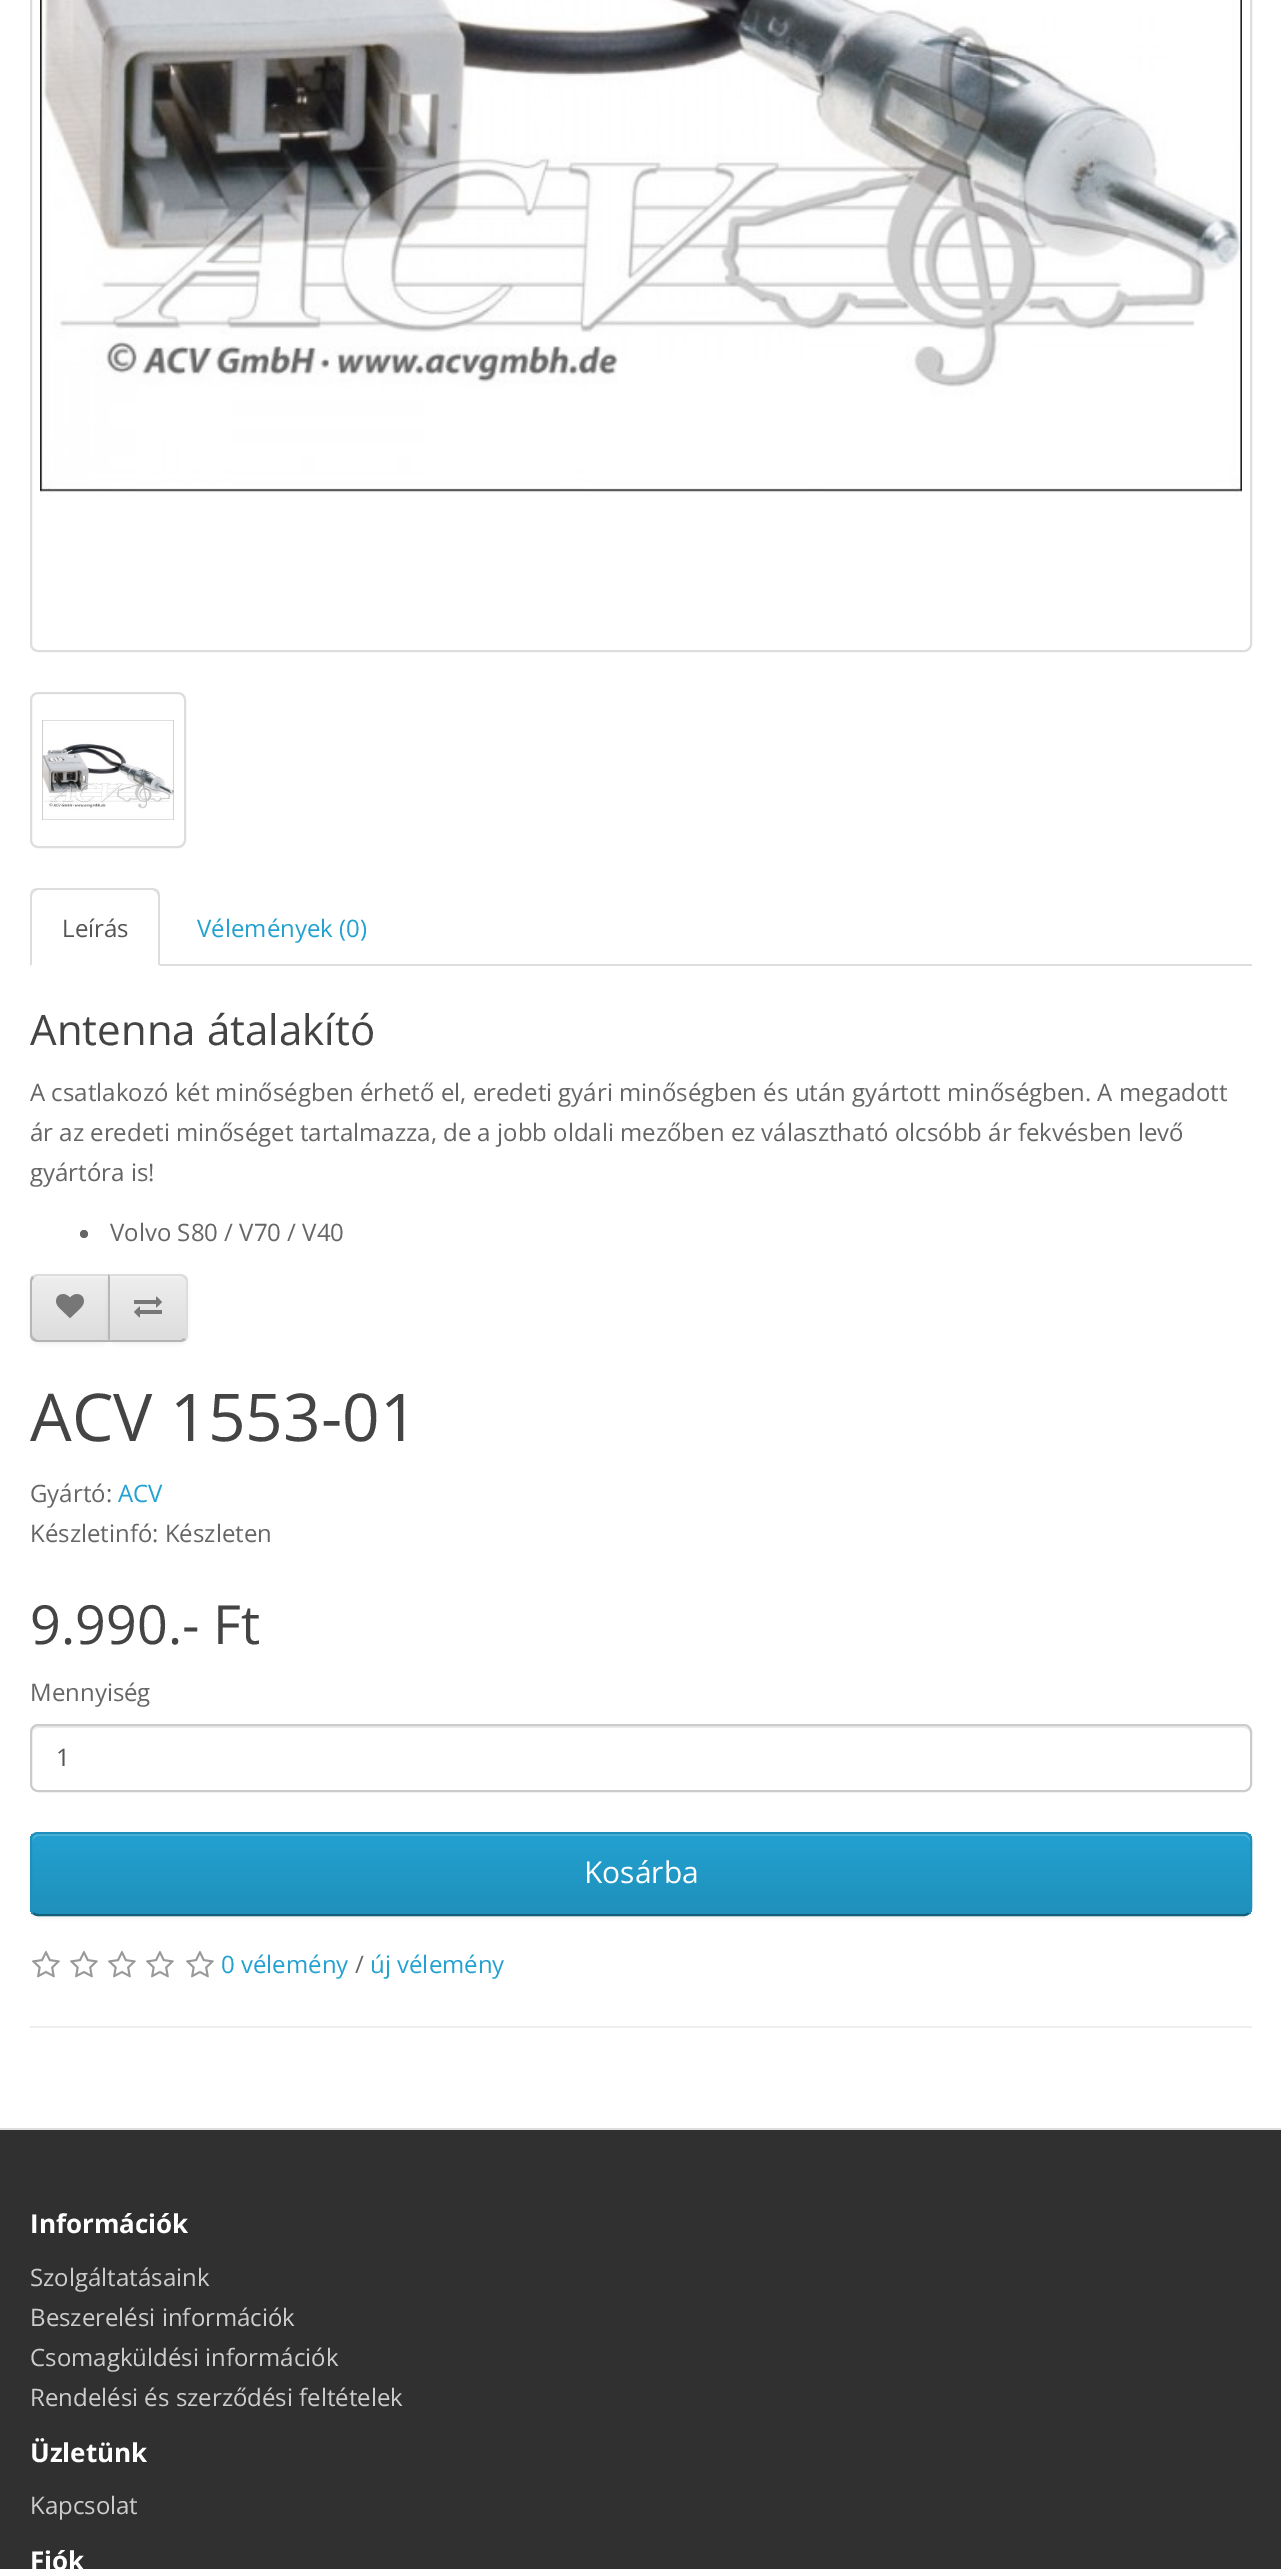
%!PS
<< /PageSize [1281 2569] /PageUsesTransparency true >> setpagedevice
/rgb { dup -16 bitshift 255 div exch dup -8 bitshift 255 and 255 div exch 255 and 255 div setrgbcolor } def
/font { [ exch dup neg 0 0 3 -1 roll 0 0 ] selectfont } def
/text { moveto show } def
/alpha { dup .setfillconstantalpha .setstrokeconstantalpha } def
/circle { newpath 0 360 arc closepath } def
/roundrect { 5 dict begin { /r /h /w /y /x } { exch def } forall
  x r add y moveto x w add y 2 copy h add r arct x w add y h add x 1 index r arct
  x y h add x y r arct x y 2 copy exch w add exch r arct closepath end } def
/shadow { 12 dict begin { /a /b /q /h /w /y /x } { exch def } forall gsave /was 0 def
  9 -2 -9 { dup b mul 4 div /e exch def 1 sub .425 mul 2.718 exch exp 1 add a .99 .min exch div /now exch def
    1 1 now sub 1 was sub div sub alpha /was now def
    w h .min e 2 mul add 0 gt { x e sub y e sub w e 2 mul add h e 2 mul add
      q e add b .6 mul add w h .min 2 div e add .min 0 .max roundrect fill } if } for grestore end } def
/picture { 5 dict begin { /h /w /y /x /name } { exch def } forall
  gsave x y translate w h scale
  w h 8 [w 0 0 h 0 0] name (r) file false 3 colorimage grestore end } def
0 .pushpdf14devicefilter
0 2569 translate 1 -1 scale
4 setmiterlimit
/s1 { /OpenSans-Regular 24 font 16#555555 rgb } def
/s2 { /OpenSans-Regular 24 font 16#23A1D1 rgb } def
/s3 { /OpenSans-Regular 42 font 16#444444 rgb } def
/s4 { /OpenSans-Regular 24 font 16#666666 rgb } def
/s5 { /OpenSans-Regular 66 font 16#444444 rgb } def
/s6 { /OpenSans-Regular 54 font 16#444444 rgb } def
/s7 { /OpenSans-Regular 30 font 16#FFFFFF rgb } def
/s8 { /OpenSans-Bold 26 font 16#FFFFFF rgb } def
/s9 { /OpenSans-Regular 24 font 16#CCCCCC rgb } def
16#FFFFFF rgb
0 0 1281 2569 rectfill
16#DDDDDD rgb
2 setlinewidth
31 -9 1220 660 7 roundrect stroke
(pic1.raw) 40 0 1202 496 picture
31 693 154 154 7 roundrect stroke
(pic2.raw) 42 720 132 100 picture
160 964 1092 2 rectfill
38 888 moveto 36 888 34 889 32 890 curveto 34 892 lineto 37 890 lineto 153 890 lineto 156 892 lineto 158 890 lineto 156 889 154 888 152 888 curveto closepath fill
160 966 moveto 160 896 lineto 160 894 159 892 158 890 curveto 156 892 lineto 157 893 158 894 158 896 curveto 158 964 lineto closepath fill
30 966 moveto 32 964 lineto 32 896 lineto 32 894 33 893 34 892 curveto 32 890 lineto 31 892 30 894 30 896 curveto closepath fill
s1
(Leírás) 62 937 text
s2
(Vélemények \(0\)) 197 937 text
s3
(Antenna átalakító) 30 1045 text
s4
(A csatlakozó két minőségben érhető el, eredeti gyári minőségben és után gyártott minőségben. A megadott) 30 1101 text
(ár az eredeti minőséget tartalmazza, de a jobb oldali mezőben ez választható olcsóbb ár fekvésben levő) 30 1141 text
(gyártóra is!) 30 1181 text
84 1234 4 circle fill
(Volvo S80 / V70 / V40) 110 1241 text
16#000000 rgb
30 1276 80 68 8 2 0.05 shadow
gsave
38 1274 moveto 110 1274 lineto 110 1342 lineto 38 1342 lineto 33.5 1342 30 1338.5 30 1334 curveto 30 1282 lineto 30 1277.5 33.5 1274 38 1274 curveto closepath clip newpath
gsave 30 1276 moveto 108 1276 lineto 108 1340 lineto 30 1340 lineto closepath clip newpath
<< /ShadingType 2 /ColorSpace /DeviceRGB /Coords [70 1276 70 1340] /Extend [true true] /Function << /FunctionType 2 /Domain [0 1] /C0 [0.933 0.933 0.933] /C1 [0.867 0.867 0.867] /N 1 >> >> shfill grestore
grestore
16#F1F1F1 rgb
38 1278 moveto 108 1278 lineto 108 1276 lineto 38 1276 lineto 35 1276 32 1279 32 1282 curveto 32 1284 lineto 32 1281 35 1278 38 1278 curveto closepath fill
16#DDDDDD rgb
38 1274 moveto 36 1274 34 1275 32 1276 curveto 34 1278 lineto 37 1276 lineto 108 1276 lineto 110 1274 lineto closepath fill
16#B3B3B3 rgb
110 1342 moveto 108 1340 lineto 37 1340 lineto 34 1338 lineto 32 1340 lineto 34 1341 36 1342 38 1342 curveto closepath fill
16#B7B7B7 rgb
30 1282 moveto 30 1334 lineto 30 1336 31 1338 32 1340 curveto 34 1338 lineto 33 1337 32 1336 32 1334 curveto 32 1282 lineto 32 1280 33 1279 34 1278 curveto 32 1276 lineto 31 1278 30 1280 30 1282 curveto closepath fill
(pic3.raw) 56 1294 28 24 picture
16#000000 rgb
108 1276 80 68 8 2 0.05 shadow
gsave
108 1274 moveto 180 1274 lineto 184.5 1274 188 1277.5 188 1282 curveto 188 1334 lineto 188 1338.5 184.5 1342 180 1342 curveto 108 1342 lineto closepath clip newpath
gsave 110 1276 moveto 188 1276 lineto 188 1340 lineto 110 1340 lineto closepath clip newpath
<< /ShadingType 2 /ColorSpace /DeviceRGB /Coords [148 1276 148 1340] /Extend [true true] /Function << /FunctionType 2 /Domain [0 1] /C0 [0.933 0.933 0.933] /C1 [0.867 0.867 0.867] /N 1 >> >> shfill grestore
grestore
16#F1F1F1 rgb
110 1278 moveto 180 1278 lineto 183 1278 186 1281 186 1284 curveto 186 1282 lineto 186 1279 183 1276 180 1276 curveto 110 1276 lineto closepath fill
16#DDDDDD rgb
108 1274 moveto 110 1276 lineto 181 1276 lineto 184 1278 lineto 186 1276 lineto 184 1275 182 1274 180 1274 curveto closepath fill
188 1334 moveto 188 1282 lineto 188 1280 187 1278 186 1276 curveto 184 1278 lineto 185 1279 186 1280 186 1282 curveto 186 1334 lineto 186 1336 185 1337 184 1338 curveto 186 1340 lineto 187 1338 188 1336 188 1334 curveto closepath fill
16#B3B3B3 rgb
180 1342 moveto 182 1342 184 1341 186 1340 curveto 184 1338 lineto 181 1340 lineto 110 1340 lineto 108 1342 lineto closepath fill
16#B7B7B7 rgb
108 1274 moveto 108 1342 lineto 110 1340 lineto 110 1276 lineto closepath fill
(pic4.raw) 134 1296 28 22 picture
s5
(ACV 1553-01) 30 1441 text
s4
(Gyártó:) 30 1502 text
s2
(ACV) 118 1502 text
s4
(Készletinfó: Készleten) 30 1542 text
s6
(9.990.- Ft) 30 1644 text
s4
(Mennyiség) 30 1701 text
16#ECECEC rgb
38 1728 moveto 1244 1728 lineto 1247 1728 1250 1731 1250 1734 curveto 1250 1732 lineto 1250 1729 1247 1726 1244 1726 curveto 38 1726 lineto 35 1726 32 1729 32 1732 curveto 32 1734 lineto 32 1731 35 1728 38 1728 curveto closepath fill
16#CCCCCC rgb
31 1725 1220 66 7 roundrect stroke
s1
(1) 56 1766 text
16#000000 rgb
30 1834 1222 84 8 2 0.05 shadow
gsave
30 1832 1222 84 8 roundrect clip newpath
gsave 30 1834 moveto 1252 1834 lineto 1252 1914 lineto 30 1914 lineto closepath clip newpath
<< /ShadingType 2 /ColorSpace /DeviceRGB /Coords [641 1834 641 1914] /Extend [true true] /Function << /FunctionType 2 /Domain [0 1] /C0 [0.137 0.631 0.82] /C1 [0.122 0.565 0.733] /N 1 >> >> shfill grestore
grestore
16#4FB4DA rgb
38 1836 moveto 1244 1836 lineto 1247 1836 1250 1839 1250 1842 curveto 1250 1840 lineto 1250 1837 1247 1834 1244 1834 curveto 38 1834 lineto 35 1834 32 1837 32 1840 curveto 32 1842 lineto 32 1839 35 1836 38 1836 curveto closepath fill
16#145E7A rgb
1249 1913 moveto 1247.5 1914.5 1246 1915 1244 1915 curveto 38 1915 lineto 36 1915 34.5 1914.5 33 1913 curveto stroke
16#1F90BB rgb
33 1913 moveto 31.5 1911.5 31 1910 31 1908 curveto 31 1840 lineto 31 1838 31.5 1836.5 33 1835 curveto 34.5 1833.5 36 1833 38 1833 curveto 1244 1833 lineto 1246 1833 1247.5 1833.5 1249 1835 curveto 1250.5 1836.5 1251 1838 1251 1840 curveto 1251 1908 lineto 1251 1910 1250.5 1911.5 1249 1913 curveto stroke
s7
(Kosárba) 584 1883 text
(pic5.raw) 32 1950 28 28 picture
(pic5.raw) 70 1950 28 28 picture
(pic5.raw) 108 1950 28 28 picture
(pic5.raw) 146 1950 28 28 picture
(pic5.raw) 186 1950 28 28 picture
s2
(0 vélemény) 221 1973 text
s4
(/) 355 1973 text
s2
(új vélemény) 370 1973 text
16#EEEEEE rgb
30 2026 1222 2 rectfill
16#303030 rgb
0 2130 1281 439 rectfill
16#DDDDDD rgb
0 2128 1281 2 rectfill
s8
(Információk) 30 2233 text
s9
(Szolgáltatásaink) 30 2286 text
(Beszerelési információk) 30 2326 text
(Csomagküldési információk) 30 2366 text
(Rendelési és szerződési feltételek) 30 2406 text
s8
(Üzletünk) 30 2462 text
s9
(Kapcsolat) 30 2514 text
s8
(Fiók) 30 2570 text
.poppdf14devicefilter showpage
